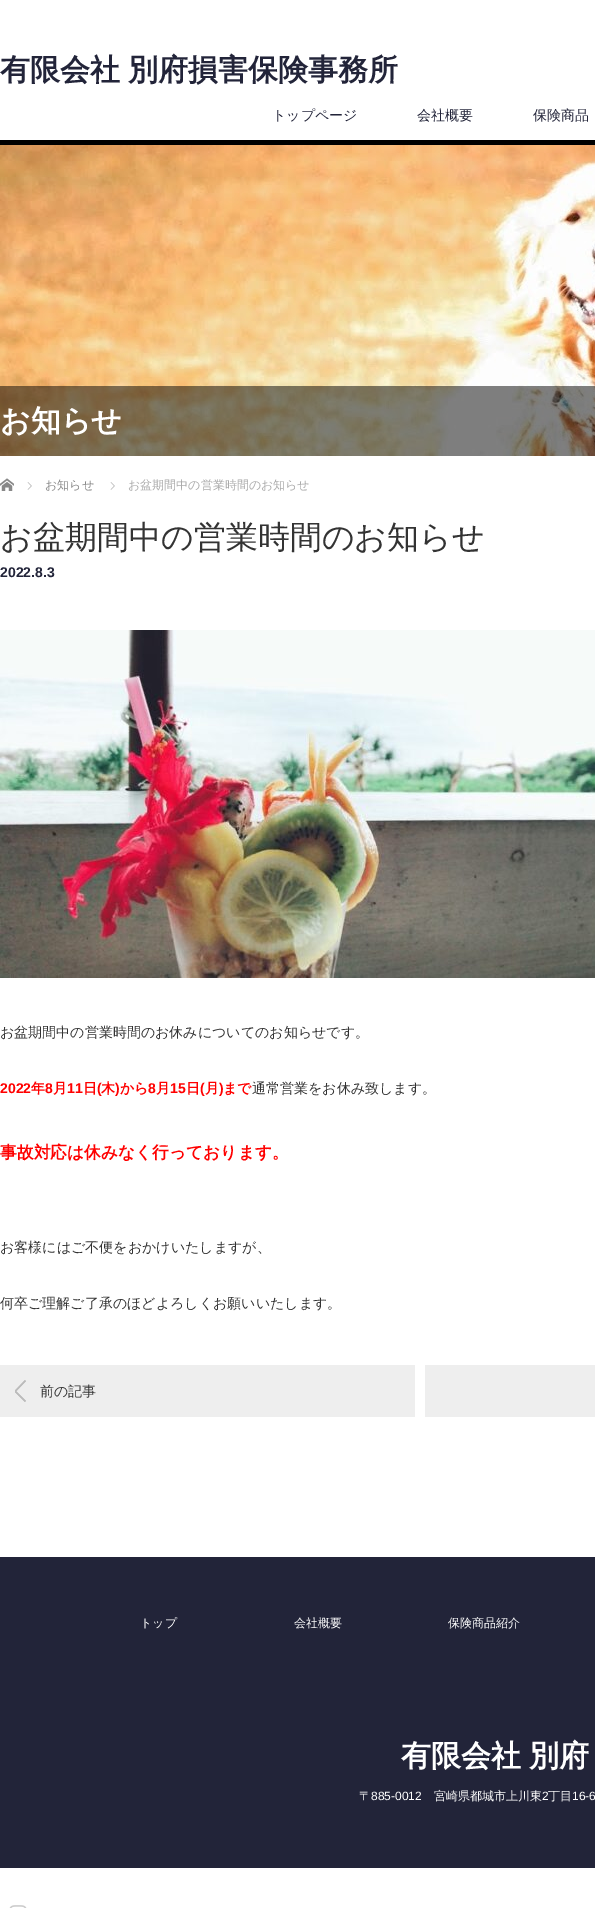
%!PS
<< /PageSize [595 1908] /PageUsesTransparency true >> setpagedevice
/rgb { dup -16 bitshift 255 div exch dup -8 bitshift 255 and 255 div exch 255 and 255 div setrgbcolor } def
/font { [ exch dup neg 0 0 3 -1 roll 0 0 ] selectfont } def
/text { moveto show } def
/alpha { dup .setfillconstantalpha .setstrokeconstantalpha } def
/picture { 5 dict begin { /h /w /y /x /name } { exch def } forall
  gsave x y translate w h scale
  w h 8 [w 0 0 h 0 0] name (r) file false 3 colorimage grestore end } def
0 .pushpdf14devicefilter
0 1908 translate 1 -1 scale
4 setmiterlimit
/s1 { /WenQuanYiZenHei-Medium 14 font 16#222439 rgb } def
/s2 { /WenQuanYiZenHei-Bold 30 font 16#FFFFFF rgb } def
/s3 { /WenQuanYiZenHei-Medium 12 font 16#888888 rgb } def
/s4 { /WenQuanYiZenHei-Medium 12 font 16#AAAAAA rgb } def
/s5 { /WenQuanYiZenHei-Medium 32 font 16#333333 rgb } def
/s6 { /LiberationSans-Bold 14 font 16#222439 rgb } def
/s7 { /WenQuanYiZenHei-Medium 14 font 16#333333 rgb } def
/s8 { /LiberationSans-Bold 14 font 16#FF0000 rgb } def
/s9 { /WenQuanYiZenHei-Bold 14 font 16#FF0000 rgb } def
/s10 { /WenQuanYiZenHei-Bold 16.75 font 16#FF0000 rgb } def
/s11 { /WenQuanYiZenHei-Medium 12 font 16#FFFFFF rgb } def
/s12 { /LiberationSans-Regular 12 font 16#FFFFFF rgb } def
16#FFFFFF rgb
0 0 595 1908 rectfill
16#000000 rgb
0 140 595 5 rectfill
/WenQuanYiZenHei-Bold 30 font
16#222439 rgb
0 80 moveto -1 0 32 (有限会社 別府損害保険事務所) widthshow
s1
(トップページ) 272 120 text
(会社概要) 417 120 text
(保険商品) 533 120 text
(pic1.raw) 0 145 595 311 picture
0.5 alpha
16#000000 rgb
0 386 595 70 rectfill
1 alpha
s2
(お知らせ) 0 431 text
(pic2.raw) 0 478 14 13 picture
(pic3.raw) 27 482 5 8 picture
s3
(お知らせ) 45 489 text
(pic3.raw) 110 482 5 8 picture
s4
(お盆期間中の営業時間のお知らせ) 128 489 text
s5
(お盆期間中の営業時間のお知らせ) 0 548 text
s6
(2022.8.3) 0 577 text
(pic4.raw) 0 630 595 348 picture
s7
(お盆期間中の営業時間のお休みについてのお知らせです。) 0 1037 text
s8
(2022) 0 1093 text
s9
(年) 31 1093 text
s8
(8) 45 1093 text
s9
(月) 53 1093 text
s8
(11) 67 1093 text
s9
(日) 83 1093 text
s8
(\() 97 1093 text
s9
(木) 101 1093 text
s8
(\)) 115 1093 text
s9
(から) 120 1093 text
s8
(8) 148 1093 text
s9
(月) 156 1093 text
s8
(15) 170 1093 text
s9
(日) 186 1093 text
s8
(\() 200 1093 text
s9
(月) 205 1093 text
s8
(\)) 219 1093 text
s9
(まで) 223 1093 text
s7
(通常営業をお休み致します。) 252 1093 text
s10
(事故対応は休みなく行っております。) 0 1158 text
s7
(お客様にはご不便をおかけいたしますが、) 0 1252 text
(何卒ご理解ご了承のほどよろしくお願いいたします。) 0 1308 text
16#EEEEEE rgb
0 1365 415 52 rectfill
(pic5.raw) 15 1380 11 22 picture
s7
(前の記事) 40 1396 text
16#EEEEEE rgb
425 1365 170 52 rectfill
16#222439 rgb
0 1557 595 311 rectfill
s11
(トップ) 140 1627 text
(会社概要) 294 1627 text
(保険商品紹介) 448 1627 text
/WenQuanYiZenHei-Bold 30 font
401 1766 moveto -1 0 32 (有限会社 別府) widthshow
s11
(〒) 359 1800 text
s12
(885-0012) 371 1800 text
s11
(宮崎県都城市上川東) 434 1800 text
s12
(2) 542 1800 text
s11
(丁目) 548 1800 text
s12
(16-6) 572 1800 text
(pic6.raw) 9 1905 18 3 picture
.poppdf14devicefilter showpage
